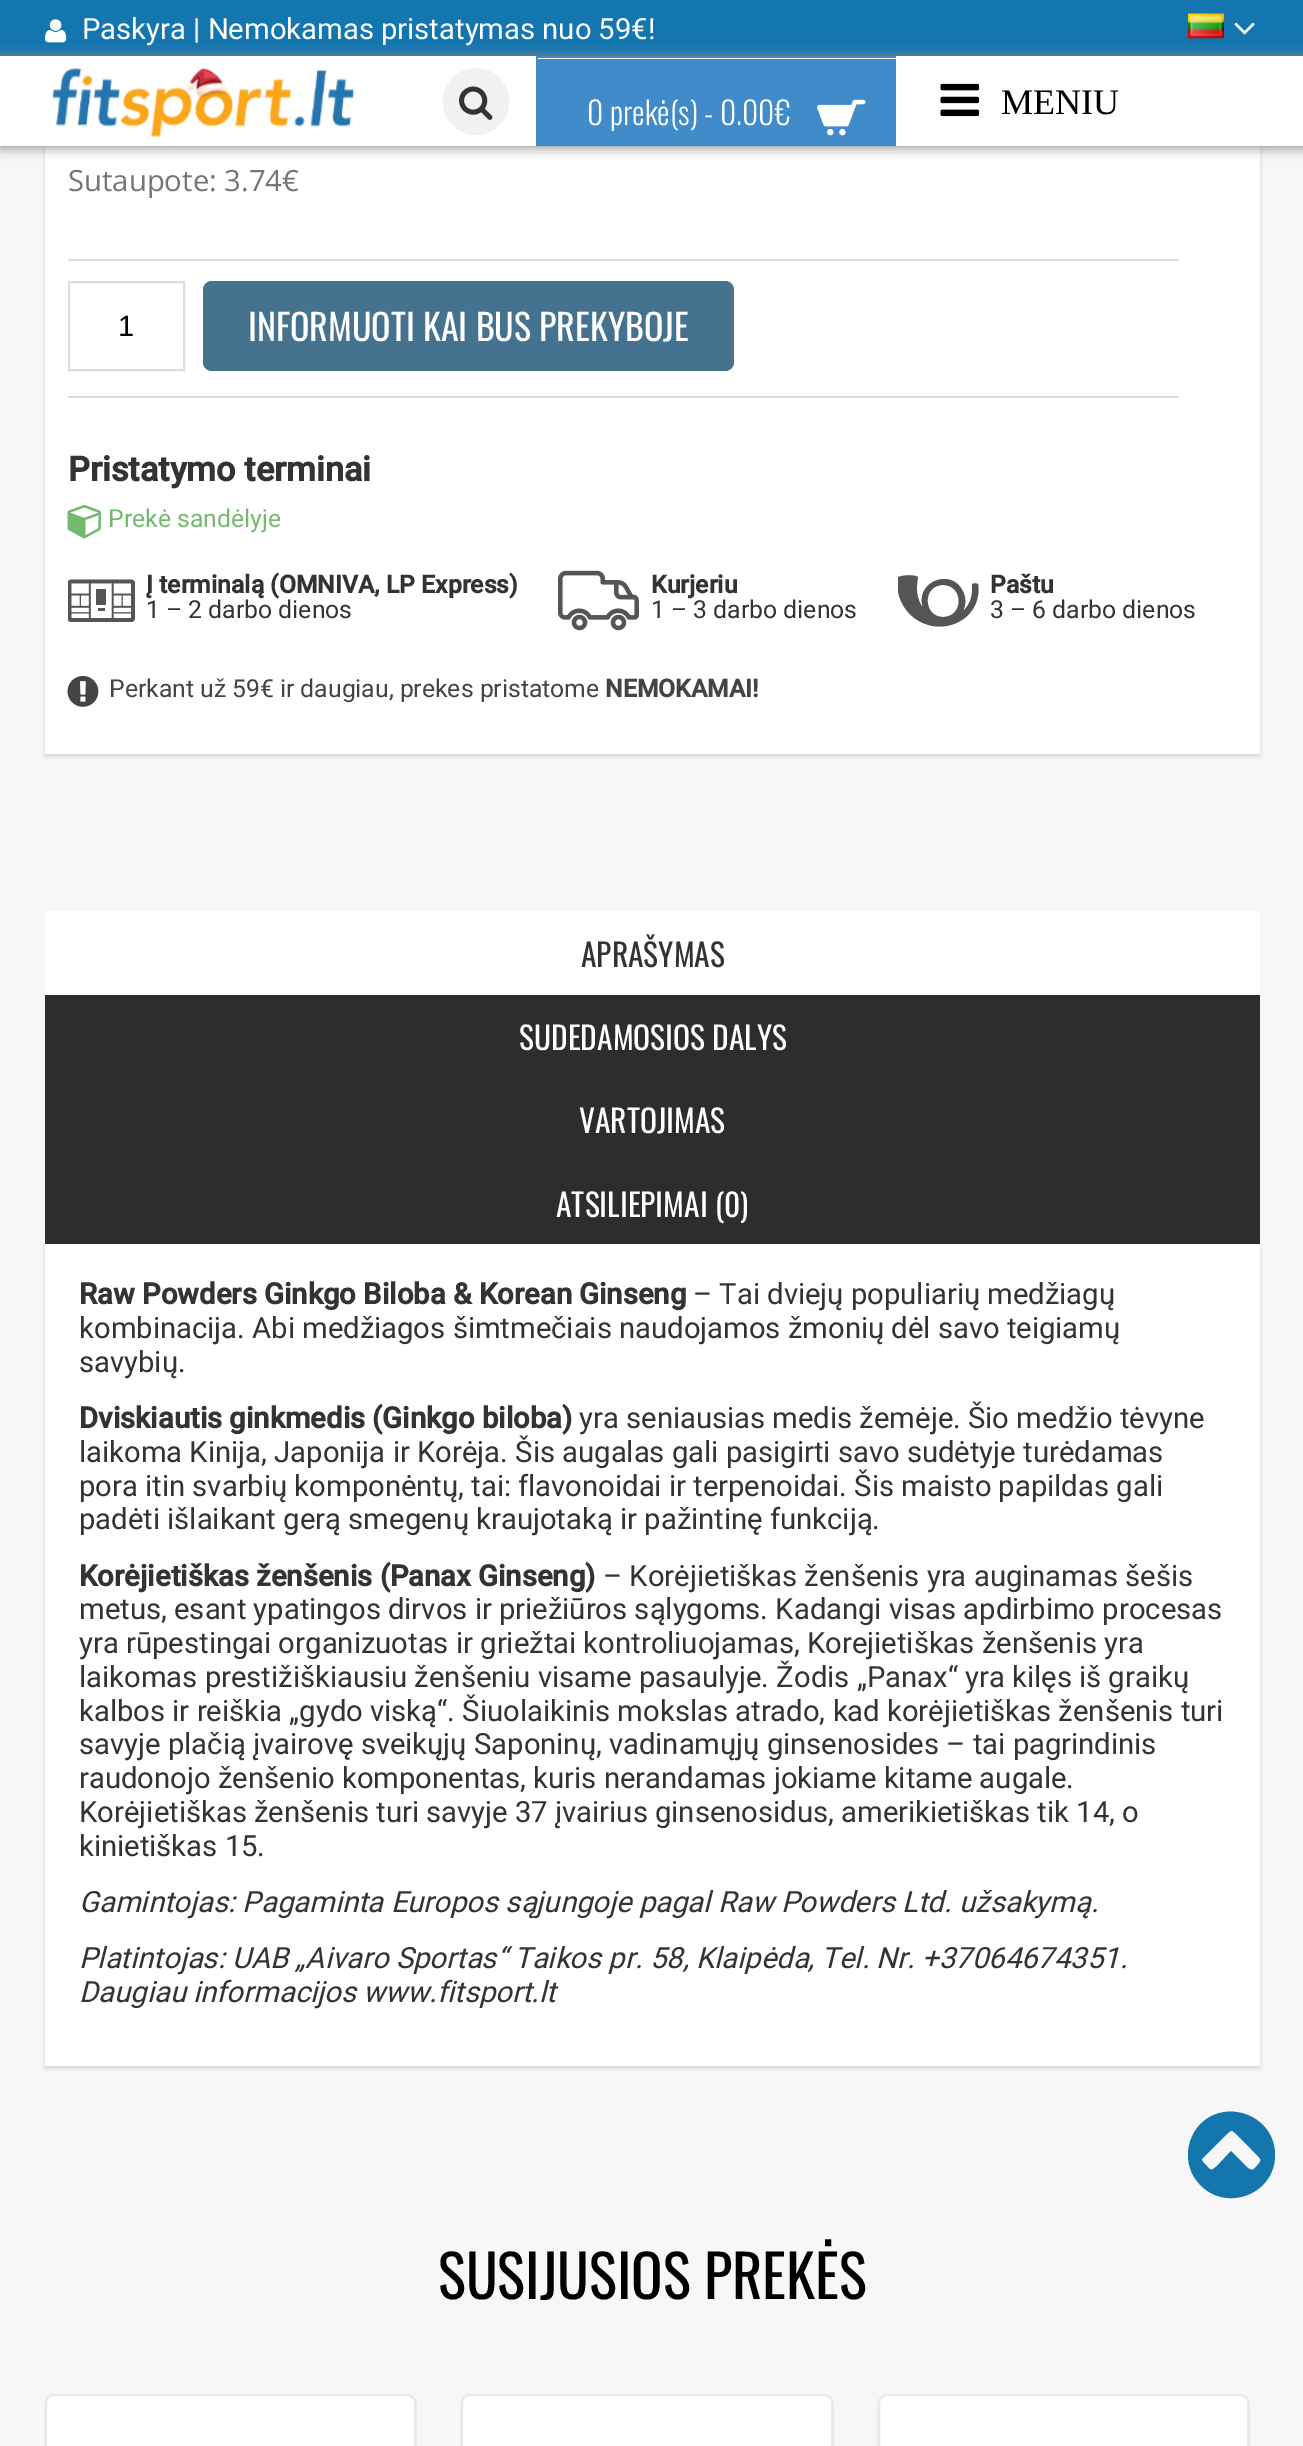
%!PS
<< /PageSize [1303 2446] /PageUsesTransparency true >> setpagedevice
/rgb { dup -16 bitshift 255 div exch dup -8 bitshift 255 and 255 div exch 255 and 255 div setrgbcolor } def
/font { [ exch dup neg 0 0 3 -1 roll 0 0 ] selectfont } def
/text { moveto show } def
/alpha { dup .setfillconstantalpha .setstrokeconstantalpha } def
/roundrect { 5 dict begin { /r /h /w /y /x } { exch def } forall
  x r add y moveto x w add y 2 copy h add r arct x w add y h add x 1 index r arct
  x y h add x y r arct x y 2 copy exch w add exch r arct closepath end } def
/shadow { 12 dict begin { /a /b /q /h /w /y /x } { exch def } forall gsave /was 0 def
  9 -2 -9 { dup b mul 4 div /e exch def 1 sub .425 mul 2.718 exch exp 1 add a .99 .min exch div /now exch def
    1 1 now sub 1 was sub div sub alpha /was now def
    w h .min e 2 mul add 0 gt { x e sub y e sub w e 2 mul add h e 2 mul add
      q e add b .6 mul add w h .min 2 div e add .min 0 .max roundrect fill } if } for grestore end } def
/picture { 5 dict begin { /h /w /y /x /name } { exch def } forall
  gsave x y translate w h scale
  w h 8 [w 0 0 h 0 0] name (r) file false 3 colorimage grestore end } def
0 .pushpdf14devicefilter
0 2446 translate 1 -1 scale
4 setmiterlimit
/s1 { /Roboto-Regular 29.25 font 16#FFFFFF rgb } def
/s2 { /Oswald-Light 31.5 font 16#FFFFFF rgb } def
/s3 { /LiberationSerif-Regular 36 font 16#000000 rgb } def
/s4 { /OpenSans-Regular 29.25 font 16#757575 rgb } def
/s5 { /LiberationSans-Regular 29.25 font 16#000000 rgb } def
/s6 { /Oswald-Regular 36 font 16#FFFFFF rgb } def
/s7 { /Roboto-Bold 34.25 font 16#333333 rgb } def
/s8 { /Roboto-Regular 24.75 font 16#73BA6E rgb } def
/s9 { /Roboto-Bold 24.75 font 16#333333 rgb } def
/s10 { /Roboto-Regular 24.75 font 16#333333 rgb } def
/s11 { /Roboto-Regular 24.75 font 16#444444 rgb } def
/s12 { /Roboto-Bold 24.75 font 16#444444 rgb } def
/s13 { /Oswald-Regular 31.5 font 16#333333 rgb } def
/s14 { /Oswald-Regular 31.5 font 16#FFFFFF rgb } def
/s15 { /Roboto-Bold 29.25 font 16#333333 rgb } def
/s16 { /Roboto-Regular 29.25 font 16#333333 rgb } def
/s17 { /Roboto-Italic 29.25 font 16#333333 rgb } def
/s18 { /Oswald-Regular 58.5 font 16#000000 rgb } def
16#F7F7F7 rgb
0 0 1303 2446 rectfill
16#000000 rgb
45 -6 1215 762 0 2 0.15 shadow
16#FFFFFF rgb
45 146 1215 608 rectfill
16#000000 rgb
0 5 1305 146 0 5.5 0.1 shadow
16#FFFFFF rgb
0 56 1303 90 rectfill
16#1376AF rgb
0 0 1303 56 rectfill
(pic1.raw) 45 19 22 24 picture
s1
(Paskyra | Nemokamas pristatymas nuo 59€!) 82 39 text
(pic2.raw) 1188 13 36 26 picture
(pic3.raw) 1234 22 21 13 picture
gsave
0 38 moveto 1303 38 lineto 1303 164 lineto 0 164 lineto closepath 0 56 moveto 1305 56 lineto 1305 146 lineto 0 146 lineto closepath eoclip newpath
16#888888 rgb
0 56 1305 90 0 5.5 1 shadow
grestore
(pic4.raw) 52 68 302 69 picture
16#F1F1F1 rgb
443 68 66 67 33 roundrect fill
(pic5.raw) 459 86 34 34 picture
16#428BCA rgb
538 59 358 85 rectfill
536 56 360 2 rectfill
536 144 360 2 rectfill
536 56 2 90 rectfill
s2
(0 prekė\(s\) - 0.00€) 587 125 text
(pic6.raw) 817 99 49 37 picture
918 56 214 1 rectfill
(pic7.raw) 940 83 40 34 picture
s3
(MENIU) 1001 114 text
s4
(Sutaupote: 3.74€) 68 191 text
16#DDDDDD rgb
68 259 1111 2 rectfill
2 setlinewidth
69 282 115 88 rectstroke
s5
(1) 118 336 text
16#45738F rgb
203 281 531 90 9 roundrect fill
s6
(INFORMUOTI KAI BUS PREKYBOJE) 248 341 text
16#DDDDDD rgb
68 396 1111 2 rectfill
s7
(Pristatymo terminai) 68 481 text
(pic8.raw) 67 505 34 34 picture
s8
(Prekė sandėlyje) 108 527 text
(pic9.raw) 68 579 67 43 picture
s9
(Į terminalą \(OMNIVA, LP Express\)) 146 593 text
s10
(1 – 2 darbo dienos) 146 618 text
(pic10.raw) 558 570 81 61 picture
s9
(Kurjeriu) 651 593 text
s10
(1 – 3 darbo dienos) 651 618 text
gsave
898 560 81 81 rectclip
16#555555 rgb
978 584 moveto 976 583 974 583 972 584 curveto 973 594 971 604 963 611 curveto 966 605 966 599 964 594 curveto 954 566 914 581 923 608 curveto 916 598 916 588 918 577 curveto 910 573 898 577 898 577 curveto 894 599 909 622 933 626 curveto 958 630 982 611 978 584 curveto closepath 943 585 moveto 964 585 964 617 943 617 curveto 923 617 922 585 943 585 curveto closepath fill
grestore
s9
(Paštu) 990 593 text
s10
(3 – 6 darbo dienos) 990 618 text
(pic11.raw) 67 676 32 31 picture
s11
(Perkant už 59€ ir daugiau, prekes pristatome) 109 697 text
s12
(NEMOKAMAI!) 605 697 text
16#FFFFFF rgb
45 911 1215 84 rectfill
s13
(APRAŠYMAS) 581 967 text
16#2D2D2D rgb
45 995 1215 249 rectfill
s14
(SUDEDAMOSIOS DALYS) 519 1050 text
(VARTOJIMAS) 579 1133 text
(ATSILIEPIMAI \(0\)) 556 1217 text
16#000000 rgb
45 1247 1215 821 0 2 0.15 shadow
16#FFFFFF rgb
45 1244 1215 822 rectfill
s15
(Raw Powders Ginkgo Biloba & Korean Ginseng) 79 1304 text
s16
(– Tai dviejų populiarių medžiagų) 693 1304 text
(kombinacija. Abi medžiagos šimtmečiais naudojamos žmonių dėl savo teigiamų) 79 1338 text
(savybių.) 79 1372 text
s15
(Dviskiautis ginkmedis \(Ginkgo biloba\)) 79 1428 text
s16
(yra seniausias medis žemėje. Šio medžio tėvyne) 579 1428 text
(laikoma Kinija, Japonija ir Korėja. Šis augalas gali pasigirti savo sudėtyje turėdamas) 79 1462 text
(pora itin svarbių komponėntų, tai: flavonoidai ir terpenoidai. Šis maisto papildas gali) 79 1496 text
(padėti išlaikant gerą smegenų kraujotaką ir pažintinę funkciją.) 79 1529 text
s15
(Korėjietiškas ženšenis \(Panax Ginseng\)) 79 1586 text
s16
(– Korėjietiškas ženšenis yra auginamas šešis) 603 1586 text
(metus, esant ypatingos dirvos ir priežiūros sąlygoms. Kadangi visas apdirbimo procesas) 79 1619 text
(yra rūpestingai organizuotas ir griežtai kontroliuojamas, Korejietiškas ženšenis yra) 79 1653 text
(laikomas prestižiškiausiu ženšeniu visame pasaulyje. Žodis „Panax“ yra kilęs iš graikų) 79 1687 text
(kalbos ir reiškia „gydo viską“. Šiuolaikinis mokslas atrado, kad korėjietiškas ženšenis turi) 79 1721 text
(savyje plačią įvairovę sveikųjų Saponinų, vadinamųjų ginsenosides – tai pagrindinis) 79 1754 text
(raudonojo ženšenio komponentas, kuris nerandamas jokiame kitame augale.) 79 1788 text
(Korėjietiškas ženšenis turi savyje 37 įvairius ginsenosidus, amerikietiškas tik 14, o) 79 1822 text
(kinietiškas 15.) 79 1856 text
s17
(Gamintojas: Pagaminta Europos sąjungoje pagal Raw Powders Ltd. užsakymą.) 79 1912 text
(Platintojas: UAB „Aivaro Sportas“ Taikos pr. 58, Klaipėda, Tel. Nr. +37064674351.) 79 1968 text
(Daugiau informacijos www.fitsport.lt) 79 2002 text
s18
(SUSIJUSIOS PREKĖS) 438 2299 text
45 2396 371 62 9 1 0.15 shadow
16#FFFFFF rgb
46 2395 369 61 8 roundrect gsave fill grestore
16#E4EBED rgb
stroke
16#000000 rgb
461 2396 372 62 9 1 0.15 shadow
16#FFFFFF rgb
462 2395 370 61 8 roundrect gsave fill grestore
16#E4EBED rgb
stroke
16#000000 rgb
878 2396 371 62 9 1 0.15 shadow
16#FFFFFF rgb
879 2395 369 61 8 roundrect gsave fill grestore
16#E4EBED rgb
stroke
16#1376AF rgb
1254 2169 moveto 1264 2158 1262 2161 1251 2149 curveto 1238 2136 lineto 1231 2129 1232 2129 1225 2136 curveto 1203 2158 lineto 1200 2160 1204 2163 1206 2165 curveto 1211 2171 1211 2171 1217 2166 curveto 1231 2151 lineto 1243 2163 lineto 1245 2165 1250 2172 1254 2169 curveto closepath 1275 2155 moveto 1275 2196 1222 2214 1197 2181 curveto 1191 2174 1188 2164 1188 2155 curveto 1188 2145 1191 2136 1197 2128 curveto 1222 2096 1275 2114 1275 2155 curveto closepath fill
.poppdf14devicefilter showpage
